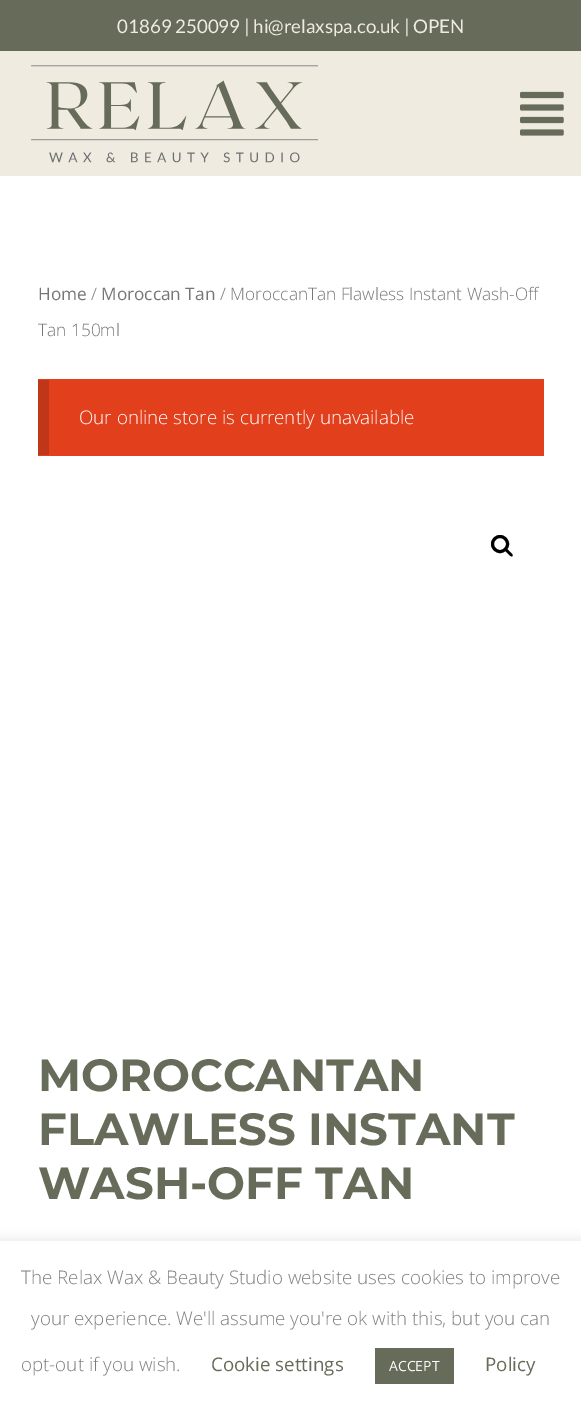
%!PS
<< /PageSize [581 1405] /PageUsesTransparency true >> setpagedevice
/rgb { dup -16 bitshift 255 div exch dup -8 bitshift 255 and 255 div exch 255 and 255 div setrgbcolor } def
/font { [ exch dup neg 0 0 3 -1 roll 0 0 ] selectfont } def
/text { moveto show } def
/alpha { dup .setfillconstantalpha .setstrokeconstantalpha } def
/circle { newpath 0 360 arc closepath } def
/roundrect { 5 dict begin { /r /h /w /y /x } { exch def } forall
  x r add y moveto x w add y 2 copy h add r arct x w add y h add x 1 index r arct
  x y h add x y r arct x y 2 copy exch w add exch r arct closepath end } def
/shadow { 12 dict begin { /a /b /q /h /w /y /x } { exch def } forall gsave /was 0 def
  9 -2 -9 { dup b mul 4 div /e exch def 1 sub .425 mul 2.718 exch exp 1 add a .99 .min exch div /now exch def
    1 1 now sub 1 was sub div sub alpha /was now def
    w h .min e 2 mul add 0 gt { x e sub y e sub w e 2 mul add h e 2 mul add
      q e add b .6 mul add w h .min 2 div e add .min 0 .max roundrect fill } if } for grestore end } def
/picture { 5 dict begin { /h /w /y /x /name } { exch def } forall
  gsave x y translate w h scale
  w h 8 [w 0 0 h 0 0] name (r) file false 3 colorimage grestore end } def
0 .pushpdf14devicefilter
0 1405 translate 1 -1 scale
4 setmiterlimit
/s1 { /Lato-Regular 18.75 font 16#EFEBE0 rgb } def
/s2 { /OpenSans-Regular 17.25 font 16#767676 rgb } def
/s3 { /OpenSans-Light 17.25 font 16#767676 rgb } def
/s4 { /OpenSans-Light 18.75 font 16#FFFFFF rgb } def
/s5 { /Montserrat-Bold 45 font 16#676B59 rgb } def
/s6 { /OpenSans-Light 18.75 font 16#7F7F7F rgb } def
/s7 { /OpenSans-Regular 18.75 font 16#676B59 rgb } def
/s8 { /OpenSans-Regular 14 font 16#FFFFFF rgb } def
16#FFFFFF rgb
0 0 581 1405 rectfill
16#676B59 rgb
0 0 581 51 rectfill
s1
(01869 250099 | hi@relaxspa.co.uk | OPEN) 117 33 text
0 51 581 125 rectfill
(pic1.raw) 31 65 287 98 picture
(pic2.raw) 520 91 44 45 picture
s2
(Home) 38 300 text
s3
(/) 91 300 text
s2
(Moroccan Tan) 101 300 text
s3
(/ MoroccanTan Flawless Instant Wash-Off) 220 300 text
(Tan 150ml) 38 336 text
16#E2401C rgb
38 379 506 77 rectfill
16#C03618 rgb
38 380 11 75 rectfill
s4
(Our online store is currently unavailable) 79 424 text
16#000000 rgb
3 setlinewidth
500 544 7.5 circle stroke
505 549 moveto 506.5 547.5 509 551 509.5 551.5 curveto 510.5 552.5 513.5 554.5 512.5 556 curveto 511 557.5 508.5 554 508 553.5 curveto 507 552.5 504 550.5 505 549 curveto closepath fill
s5
(MOROCCANTAN) 38 1091 text
(FLAWLESS INSTANT) 38 1145 text
(WASH-OFF TAN) 38 1199 text
16#ACABAB rgb
0 1240 581 164 0 6 0.3 shadow
16#FFFFFF rgb
0 1241 581 164 rectfill
s6
(The Relax Wax & Beauty Studio website uses cookies to improve) 21 1284 text
(your experience. We'll assume you're ok with this, but you can) 31 1325 text
(opt-out if you wish.) 21 1371 text
s7
(Cookie settings) 211 1371 text
375 1348 79 36 rectfill
s8
(ACCEPT) 389 1371 text
s7
(Policy) 485 1371 text
.poppdf14devicefilter showpage
